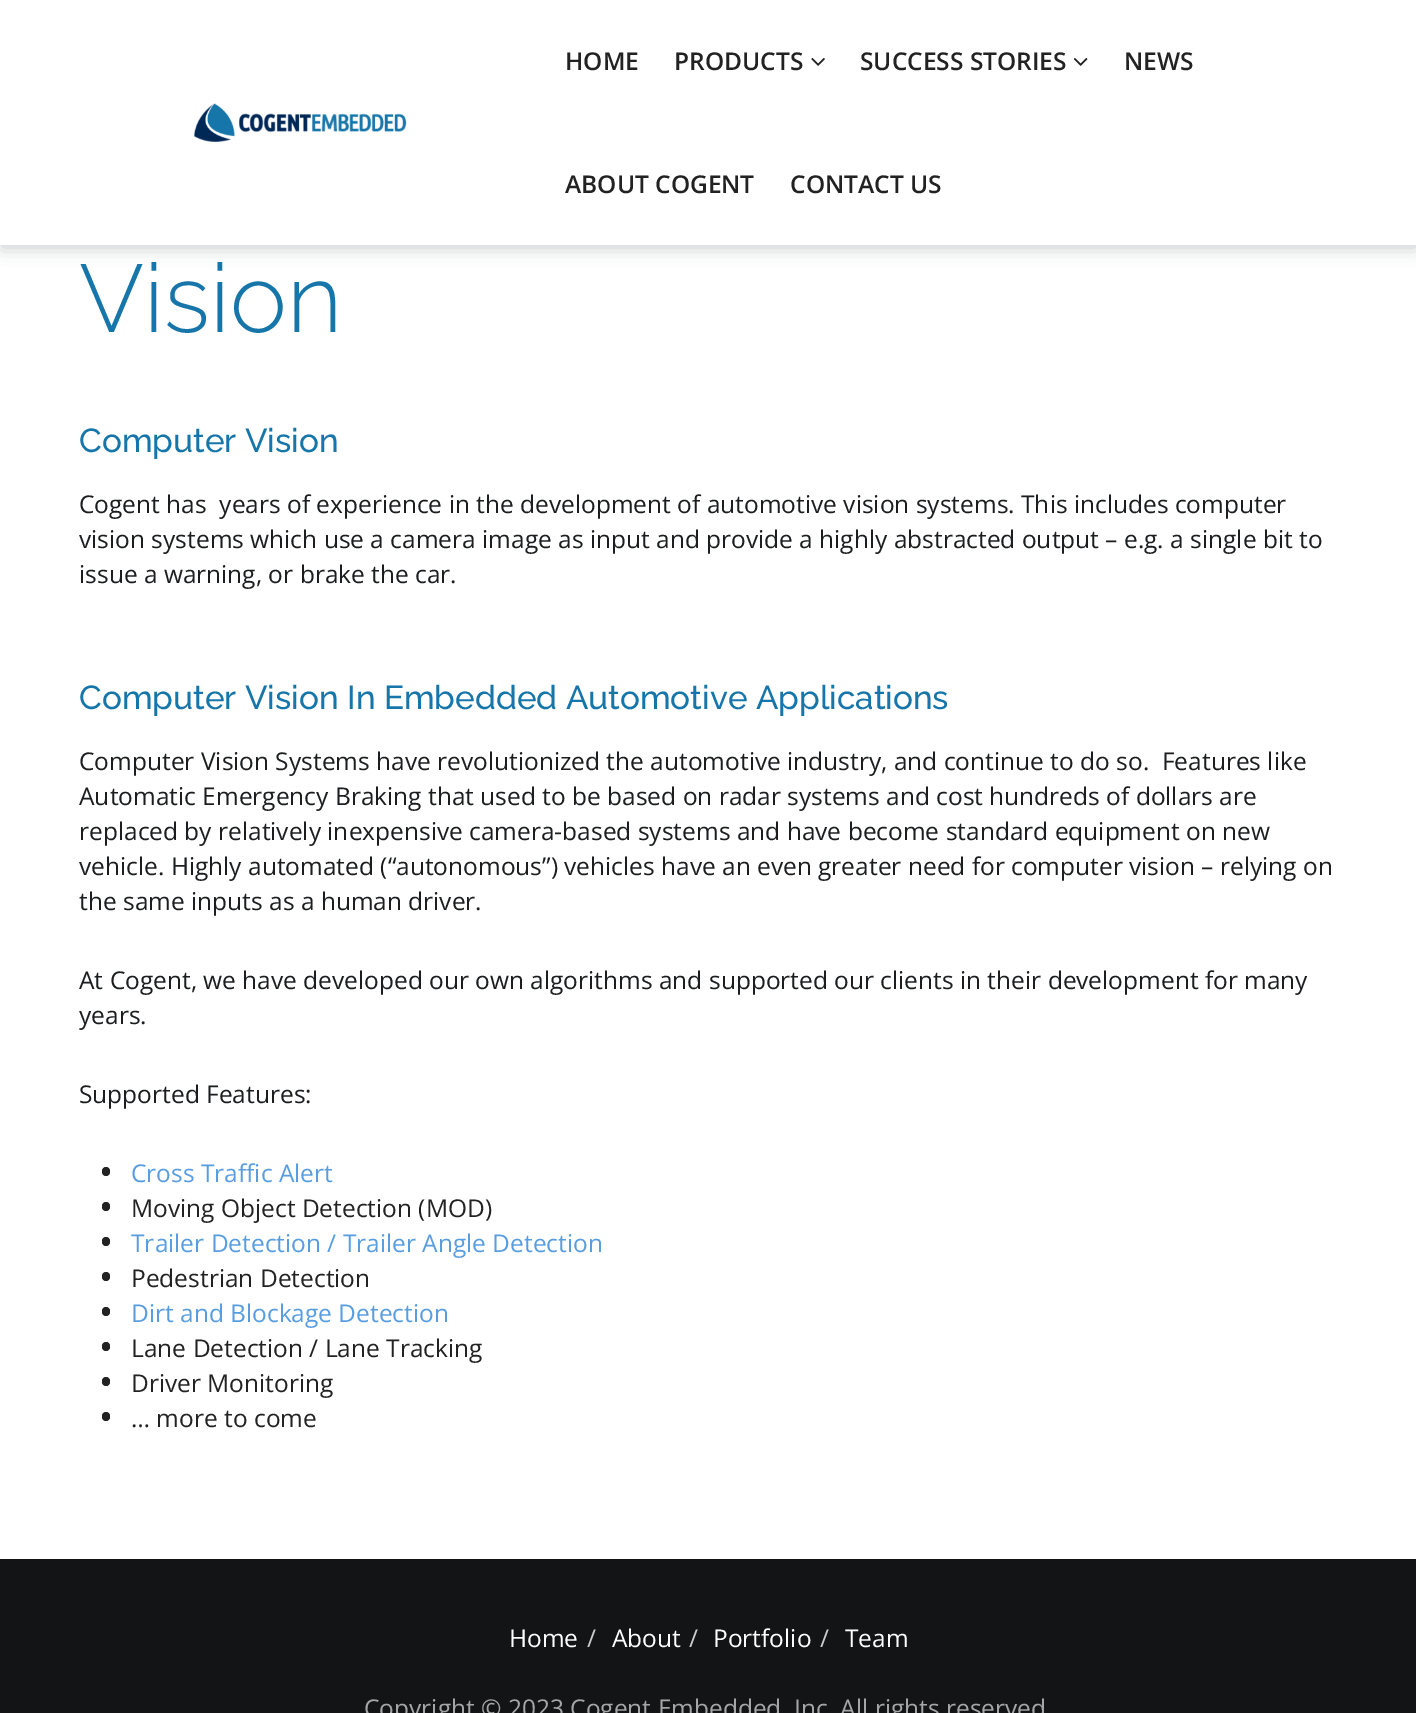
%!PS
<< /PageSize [1416 1713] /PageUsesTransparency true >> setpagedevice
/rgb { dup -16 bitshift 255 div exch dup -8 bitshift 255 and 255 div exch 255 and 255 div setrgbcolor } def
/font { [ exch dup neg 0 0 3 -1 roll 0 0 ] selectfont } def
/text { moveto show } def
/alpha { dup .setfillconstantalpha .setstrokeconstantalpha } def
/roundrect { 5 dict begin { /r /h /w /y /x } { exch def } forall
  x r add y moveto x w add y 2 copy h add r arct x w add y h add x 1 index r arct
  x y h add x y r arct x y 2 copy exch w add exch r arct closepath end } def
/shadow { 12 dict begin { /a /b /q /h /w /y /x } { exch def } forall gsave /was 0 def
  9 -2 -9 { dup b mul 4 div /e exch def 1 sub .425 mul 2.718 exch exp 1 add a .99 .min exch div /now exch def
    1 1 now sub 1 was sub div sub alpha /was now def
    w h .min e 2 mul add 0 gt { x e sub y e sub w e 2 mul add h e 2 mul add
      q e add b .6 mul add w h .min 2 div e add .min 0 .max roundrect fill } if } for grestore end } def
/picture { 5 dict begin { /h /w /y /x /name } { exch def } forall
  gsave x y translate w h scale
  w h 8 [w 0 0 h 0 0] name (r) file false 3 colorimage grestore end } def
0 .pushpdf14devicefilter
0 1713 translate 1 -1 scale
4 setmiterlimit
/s1 { /OpenSans-SemiBold 24.5 font 16#222222 rgb } def
/s2 { /Raleway-Thin 96 font 16#1675A9 rgb } def
/s3 { /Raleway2-Thin 33.25 font 16#1675A9 rgb } def
/s4 { /OpenSans-Regular 24.5 font 16#1B1D1F rgb } def
/s5 { /OpenSans-Regular 24.5 font 16#589DDF rgb } def
/s6 { /OpenSans-Regular 24.5 font 16#222222 rgb } def
/s7 { /OpenSans-Regular 24.5 font 16#FFFFFF rgb } def
/s8 { /OpenSans-Regular 24.5 font 16#CCCCCC rgb } def
/s9 { /OpenSans-Regular 24.5 font 16#A6A6A6 rgb } def
16#FFFFFF rgb
0 0 1416 1713 rectfill
16#576164 rgb
2 5 1414 242 0 9 0.35 shadow
16#FFFFFF rgb
0 0 1416 245 rectfill
(pic1.raw) 194 103 213 39 picture
s1
(HOME) 565 70 text
(PRODUCTS) 674 70 text
(pic2.raw) 811 58 14 8 picture
(SUCCESS STORIES) 860 70 text
(pic3.raw) 1073 58 15 8 picture
(NEWS) 1124 70 text
(ABOUT COGENT) 565 193 text
(CONTACT US) 790 193 text
s2
(Vision) 79 332 text
s3
(Computer Vision) 79 452 text
s4
(Cogent has  years of experience in the development of automotive vision systems. This includes computer) 79 513 text
(vision systems which use a camera image as input and provide a highly abstracted output – e.g. a single bit to) 79 548 text
(issue a warning, or brake the car.) 79 583 text
s3
(Computer Vision In Embedded Automotive Applications) 79 709 text
s4
(Computer Vision Systems have revolutionized the automotive industry, and continue to do so.  Features like) 79 770 text
(Automatic Emergency Braking that used to be based on radar systems and cost hundreds of dollars are) 79 805 text
(replaced by relatively inexpensive camera-based systems and have become standard equipment on new) 79 840 text
(vehicle. Highly automated \(“autonomous”\) vehicles have an even greater need for computer vision – relying on) 79 875 text
(the same inputs as a human driver.) 79 910 text
(At Cogent, we have developed our own algorithms and supported our clients in their development for many) 79 989 text
(years.) 79 1024 text
(Supported Features:) 79 1103 text
16#222222 rgb
102 1167 8 9 4 roundrect fill
s5
(Cross Traffic Alert) 131 1182 text
16#222222 rgb
102 1202 8 9 4 roundrect fill
(Moving Object Detection \(MOD\)) 131 1217 text
102 1237 8 9 4 roundrect fill
s5
(Trailer Detection / Trailer Angle Detection) 131 1252 text
16#222222 rgb
102 1272 8 9 4 roundrect fill
(Pedestrian Detection) 131 1287 text
102 1307 8 9 4 roundrect fill
s5
(Dirt and Blockage Detection) 131 1322 text
16#222222 rgb
102 1342 8 9 4 roundrect fill
(Lane Detection / Lane Tracking) 131 1357 text
102 1377 8 9 4 roundrect fill
(Driver Monitoring) 131 1392 text
102 1412 8 9 4 roundrect fill
(… more to come) 131 1427 text
16#121416 rgb
0 1559 1416 154 rectfill
s7
(Home) 509 1647 text
s8
(/) 587 1647 text
s7
(About) 612 1647 text
s8
(/) 689 1647 text
s7
(Portfolio) 713 1647 text
s8
(/) 820 1647 text
s7
(Team) 845 1647 text
s9
(Copyright © 2023 Cogent Embedded, Inc. All rights reserved) 364 1717 text
.poppdf14devicefilter showpage
